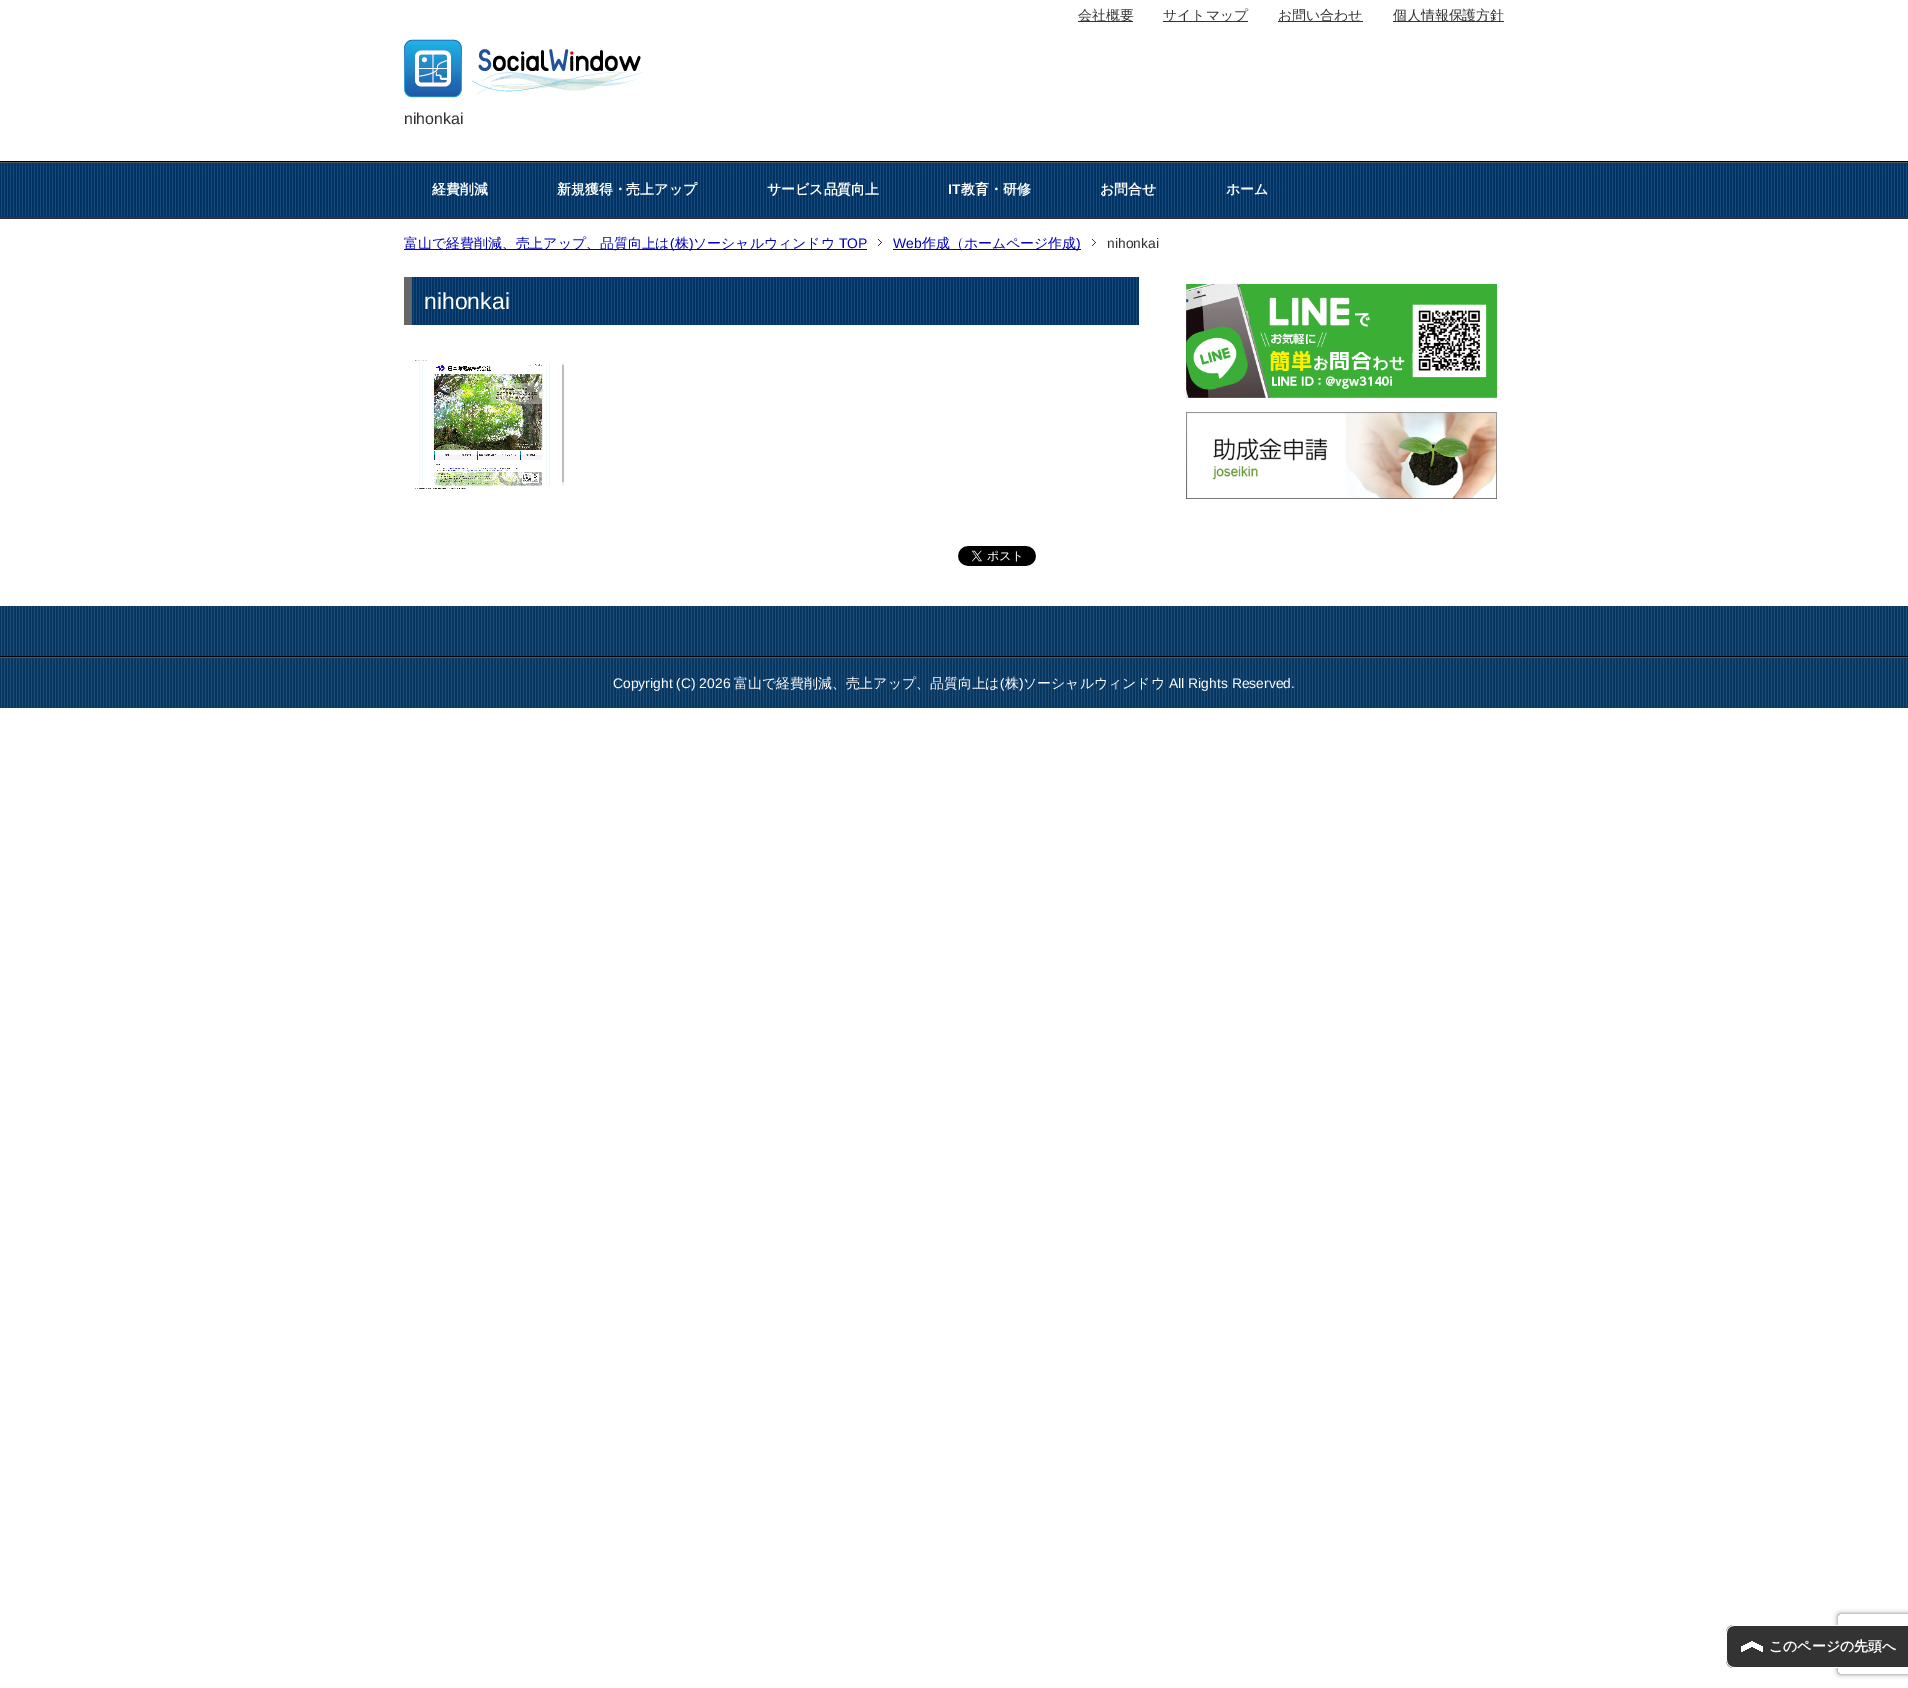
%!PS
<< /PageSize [1908 1688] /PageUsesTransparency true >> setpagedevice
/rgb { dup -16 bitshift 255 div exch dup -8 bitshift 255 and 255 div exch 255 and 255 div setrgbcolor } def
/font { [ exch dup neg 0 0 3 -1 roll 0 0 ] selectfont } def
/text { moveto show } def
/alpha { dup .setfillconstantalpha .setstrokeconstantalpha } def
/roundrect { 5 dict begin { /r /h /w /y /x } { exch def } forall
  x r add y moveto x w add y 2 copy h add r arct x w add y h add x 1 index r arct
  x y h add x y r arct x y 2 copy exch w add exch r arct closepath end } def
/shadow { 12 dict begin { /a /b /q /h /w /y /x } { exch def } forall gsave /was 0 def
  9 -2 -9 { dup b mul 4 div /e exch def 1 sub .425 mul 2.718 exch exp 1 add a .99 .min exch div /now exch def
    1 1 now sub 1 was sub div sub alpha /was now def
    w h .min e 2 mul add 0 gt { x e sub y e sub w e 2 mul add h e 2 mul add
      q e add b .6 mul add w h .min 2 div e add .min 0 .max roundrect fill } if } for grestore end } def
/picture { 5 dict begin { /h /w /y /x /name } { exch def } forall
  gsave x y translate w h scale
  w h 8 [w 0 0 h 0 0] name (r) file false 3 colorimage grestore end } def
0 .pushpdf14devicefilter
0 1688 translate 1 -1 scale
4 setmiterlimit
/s1 { /WenQuanYiZenHei-Medium 13.9 font 16#333333 rgb } def
/s2 { /LiberationSans-Regular 16 font 16#333333 rgb } def
/s3 { /WenQuanYiZenHei-Bold 13.9 font 16#FFFFFF rgb } def
/s4 { /LiberationSans-Bold 13.9 font 16#FFFFFF rgb } def
/s5 { /WenQuanYiZenHei-Medium 13.9 font 16#0000BB rgb } def
/s6 { /LiberationSans-Regular 13.9 font 16#0000BB rgb } def
/s7 { /LiberationSans-Regular 13.9 font 16#333333 rgb } def
/s8 { /LiberationSans-Regular 23 font 16#FFFFFF rgb } def
/s9 { /LiberationSans-Regular 13.9 font 16#FFFFFF rgb } def
/s10 { /WenQuanYiZenHei-Medium 13.9 font 16#FFFFFF rgb } def
16#FFFFFF rgb
0 0 1908 1688 rectfill
16#333333 rgb
1078 21 55 1 rectfill
s1
(会社概要) 1078 20 text
1163 21 85 1 rectfill
(サイトマップ) 1163 20 text
1278 21 85 1 rectfill
(お問い合わせ) 1278 20 text
1393 21 111 1 rectfill
(個人情報保護方針) 1393 20 text
16#000000 rgb
0 161 1908 1 rectfill
(pic1.raw) 404 39 239 59 picture
s2
(nihonkai) 404 124 text
16#003366 rgb
0 163 1908 54 rectfill
(pic2.raw) 1 163 1906 54 picture
16#555555 rgb
0 162 1908 1 rectfill
16#333333 rgb
0 217 1908 2 rectfill
s3
(経費削減) 432 194 text
(新規獲得・売上アップ) 557 194 text
(サービス品質向上) 767 194 text
s4
(IT) 948 194 text
s3
(教育・研修) 961 194 text
(お問合せ) 1100 194 text
(ホーム) 1226 194 text
16#0000BB rgb
404 249 463 1 rectfill
s5
(富山で経費削減、売上アップ、品質向上は) 404 248 text
s6
(\() 670 248 text
s5
(株) 675 248 text
s6
(\)) 689 248 text
s5
(ソーシャルウィンドウ) 693 248 text
s6
(TOP) 839 248 text
(pic3.raw) 878 239 4 7 picture
(Web) 893 248 text
893 249 188 1 rectfill
s5
(作成（ホームページ作成) 922 248 text
s6
(\)) 1076 248 text
(pic3.raw) 1092 239 4 7 picture
s7
(nihonkai) 1107 248 text
16#003366 rgb
412 277 727 48 rectfill
(pic4.raw) 413 277 724 48 picture
16#666666 rgb
404 277 8 48 rectfill
s8
(nihonkai) 424 309 text
(pic5.raw) 415 360 149 129 picture
(pic6.raw) 958 546 78 20 picture
(pic7.raw) 1186 284 311 114 picture
(pic8.raw) 1186 412 311 87 picture
16#073763 rgb
0 606 1908 50 rectfill
(pic9.raw) 1 606 1906 50 picture
16#000000 rgb
0 656 1908 1 rectfill
16#073763 rgb
0 658 1908 50 rectfill
(pic9.raw) 1 658 1906 50 picture
16#555555 rgb
0 657 1908 1 rectfill
s9
(Copyright \(C\) 2026) 613 688 text
s10
(富山で経費削減、売上アップ、品質向上は) 734 688 text
s9
(\() 1000 688 text
s10
(株) 1005 688 text
s9
(\)) 1019 688 text
s10
(ソーシャルウィンドウ) 1023 688 text
s9
(All Rights Reserved.) 1169 688 text
gsave
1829 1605 moveto 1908 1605 lineto 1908 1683 lineto 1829 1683 lineto closepath 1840 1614 moveto 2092 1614 lineto 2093 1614 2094 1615 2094 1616 curveto 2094 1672 lineto 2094 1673 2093 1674 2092 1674 curveto 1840 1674 lineto 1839 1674 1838 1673 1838 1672 curveto 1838 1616 lineto 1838 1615 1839 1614 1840 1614 curveto closepath eoclip newpath
16#808080 rgb
1838 1614 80 60 2 2.5 1 shadow
grestore
16#333333 rgb
1734 1625 moveto 1908 1625 lineto 1908 1668 lineto 1734 1668 lineto 1729.5 1668 1726 1664.5 1726 1660 curveto 1726 1633 lineto 1726 1628.5 1729.5 1625 1734 1625 curveto closepath fill
(pic10.raw) 1741 1641 22 11 picture
16#FFFFFF rgb
1734 1625 moveto 1908 1625 lineto 1908 1668 lineto 1734 1668 lineto 1730 1668 1726 1664 1726 1660 curveto 1726 1633 lineto 1726 1629 1730 1625 1734 1625 curveto closepath 1734 1626 moveto 1908 1626 lineto 1908 1667 lineto 1734 1667 lineto 1730 1667 1727 1664 1727 1660 curveto 1727 1633 lineto 1727 1629 1730 1626 1734 1626 curveto closepath eofill
s3
(このページの先頭へ) 1769 1651 text
.poppdf14devicefilter showpage
